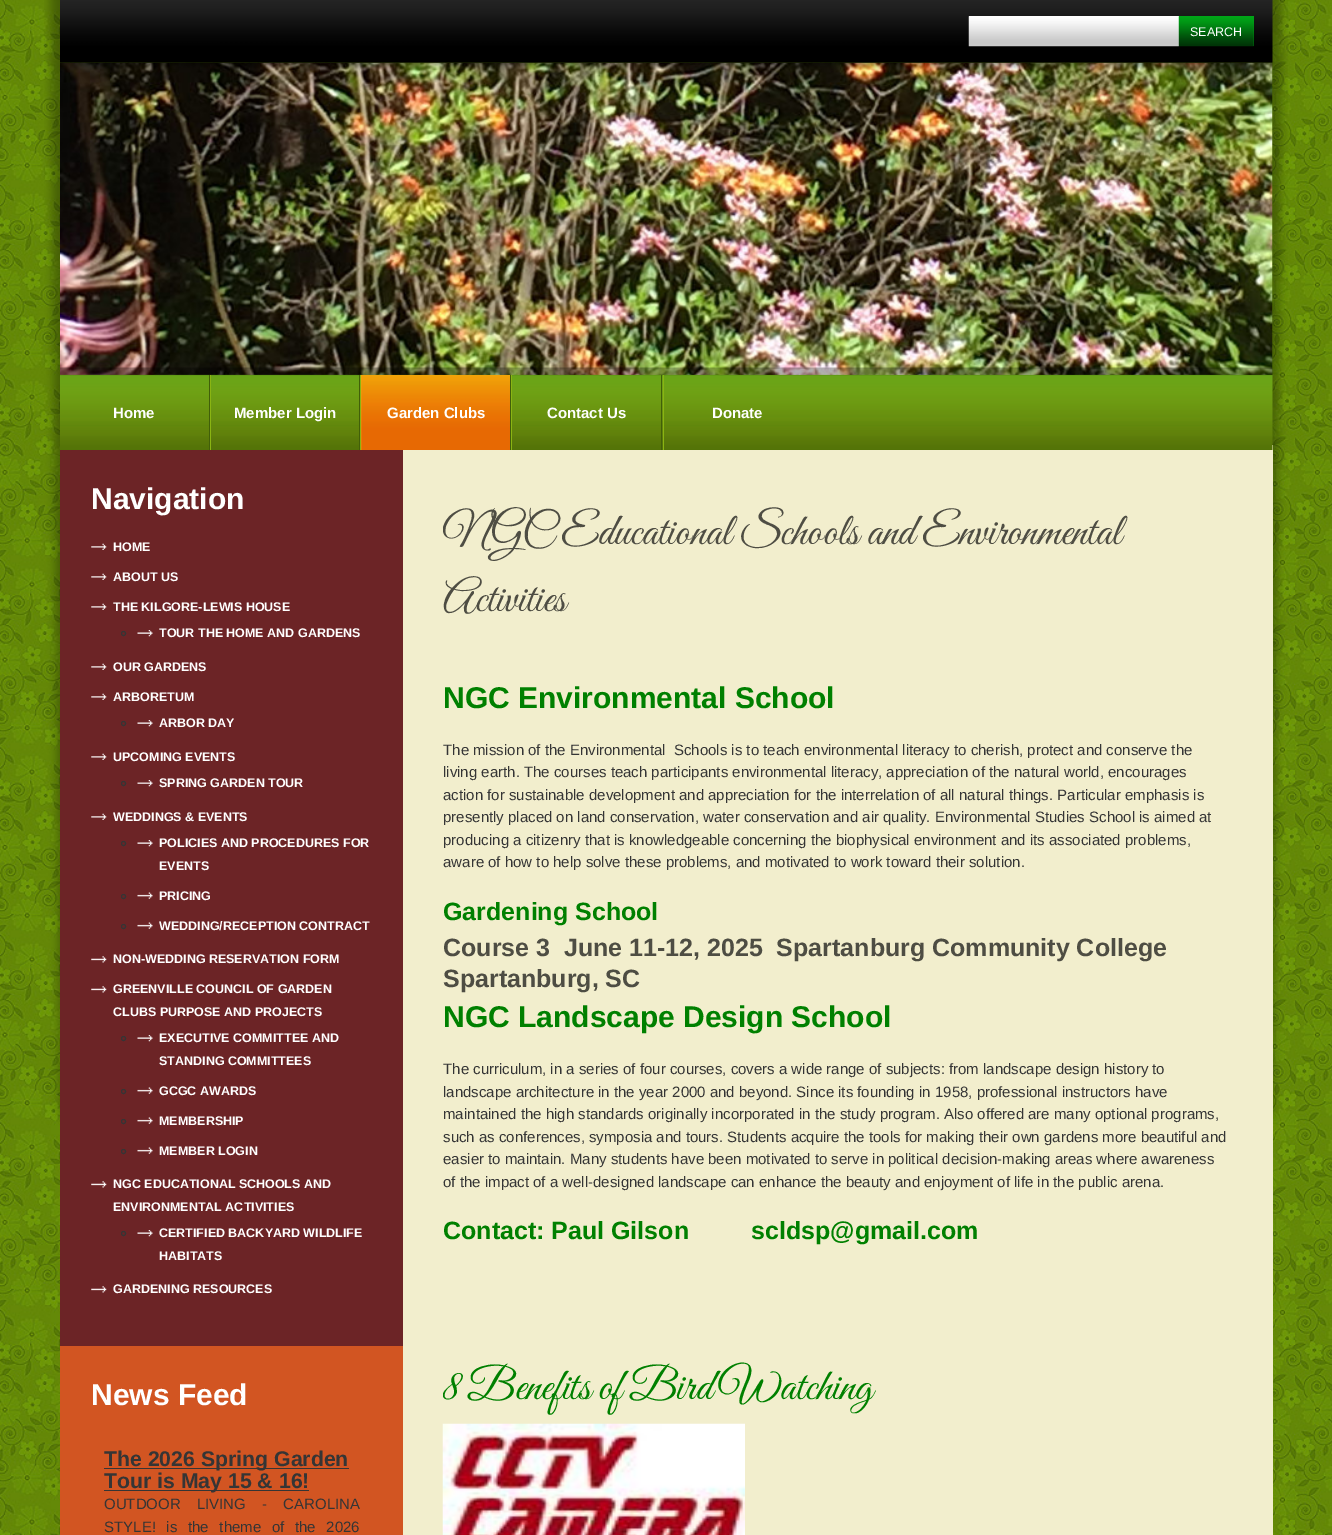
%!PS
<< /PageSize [1332 1535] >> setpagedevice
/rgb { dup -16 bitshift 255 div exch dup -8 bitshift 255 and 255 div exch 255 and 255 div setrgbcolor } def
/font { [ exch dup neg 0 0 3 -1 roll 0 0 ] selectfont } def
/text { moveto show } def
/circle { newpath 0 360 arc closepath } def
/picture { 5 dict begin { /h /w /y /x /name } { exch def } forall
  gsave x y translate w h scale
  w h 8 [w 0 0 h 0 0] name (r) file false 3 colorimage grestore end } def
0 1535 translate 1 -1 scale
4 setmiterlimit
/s1 { /LiberationSans-Regular 12.5 font 16#FFFFFF rgb } def
/s2 { /LiberationSans-Bold 15 font 16#FFFFFF rgb } def
/s3 { /LiberationSans-Bold 30 font 16#FFFFFF rgb } def
/s4 { /LiberationSans-Bold 12.5 font 16#FFFFFF rgb } def
/s5 { /LiberationSans-Bold 21.25 font 16#353535 rgb } def
/s6 { /GreatVibes-Regular 45 font 16#4E4D43 rgb } def
/s7 { /LiberationSans-Bold 30 font 16#008000 rgb } def
/s8 { /LiberationSans-Regular 15 font 16#353535 rgb } def
/s9 { /LiberationSans-Bold 25 font 16#008000 rgb } def
/s10 { /LiberationSans-Bold 25 font 16#4E4D43 rgb } def
16#FFFFFF rgb
0 0 1332 1535 rectfill
(pic1.raw) 0 0 1332 1535 picture
(pic2.raw) 44 0 1244 1122 picture
(pic6.raw) 60 62 1213 313 picture
(pic3.raw) 60 0 1213 70 picture
969 16 210 30 rectfill
(pic4.raw) 968 16 211 31 picture
16#00A517 rgb
1179 16 75 30 rectfill
(pic5.raw) 1178 16 76 31 picture
s1
(SEARCH) 1190 36 text
16#F2EECD rgb
403 445 870 1090 rectfill
(pic7.raw) 60 367 1213 83 picture
16#415F09 rgb
209 375 1 75 rectfill
s2
(Home) 113 418 text
16#415F09 rgb
359 375 1 75 rectfill
16#8AB413 rgb
210 375 1 75 rectfill
s2
(Member Login) 234 418 text
16#415F09 rgb
510 375 1 75 rectfill
16#8AB413 rgb
360 375 1 75 rectfill
(pic8.raw) 361 375 149 75 picture
s2
(Garden Clubs) 387 418 text
16#415F09 rgb
661 375 1 75 rectfill
16#8AB413 rgb
511 375 1 75 rectfill
s2
(Contact Us) 547 418 text
16#8AB413 rgb
663 375 1 75 rectfill
s2
(Donate) 712 418 text
16#6C2426 rgb
60 450 343 896 rectfill
s3
(Navigation) 91 509 text
(pic9.raw) 91 543 16 7 picture
s4
(HOME) 113 551 text
(pic9.raw) 91 573 16 7 picture
(ABOUT US) 113 581 text
(pic9.raw) 91 603 16 7 picture
(THE KILGORE-LEWIS HOUSE) 113 611 text
(pic10.raw) 137 630 16 7 picture
16#353535 rgb
123.5 633.5 2 circle stroke
s4
(TOUR THE HOME AND GARDENS) 159 637 text
(pic9.raw) 91 663 16 7 picture
(OUR GARDENS) 113 671 text
(pic9.raw) 91 693 16 7 picture
(ARBORETUM) 113 701 text
(pic10.raw) 137 720 16 7 picture
16#353535 rgb
123.5 723.5 2 circle stroke
s4
(ARBOR DAY) 159 727 text
(pic9.raw) 91 753 16 7 picture
(UPCOMING EVENTS) 113 761 text
(pic11.raw) 137 780 16 7 picture
16#353535 rgb
123.5 783.5 2 circle stroke
s4
(SPRING GARDEN TOUR) 159 787 text
(pic9.raw) 91 813 16 7 picture
(WEDDINGS & EVENTS) 113 821 text
(pic10.raw) 137 840 16 7 picture
16#353535 rgb
123.5 843.5 2 circle stroke
s4
(POLICIES AND PROCEDURES FOR) 159 847 text
(EVENTS) 159 870 text
(pic12.raw) 137 892 16 7 picture
16#353535 rgb
123.5 896.5 2 circle stroke
s4
(PRICING) 159 900 text
(pic12.raw) 137 922 16 7 picture
16#353535 rgb
123.5 926.5 2 circle stroke
s4
(WEDDING/RECEPTION CONTRACT) 159 930 text
(pic13.raw) 91 956 16 7 picture
(NON-WEDDING RESERVATION FORM) 113 963 text
(pic13.raw) 91 986 16 7 picture
(GREENVILLE COUNCIL OF GARDEN) 113 993 text
(CLUBS PURPOSE AND PROJECTS) 113 1016 text
(pic10.raw) 137 1035 16 7 picture
16#353535 rgb
123.5 1038.5 2 circle stroke
s4
(EXECUTIVE COMMITTEE AND) 159 1042 text
(STANDING COMMITTEES) 159 1065 text
(pic12.raw) 137 1087 16 7 picture
16#353535 rgb
123.5 1091.5 2 circle stroke
s4
(GCGC AWARDS) 159 1095 text
(pic12.raw) 137 1117 16 7 picture
16#353535 rgb
123.5 1121.5 2 circle stroke
s4
(MEMBERSHIP) 159 1125 text
(pic12.raw) 137 1147 16 7 picture
16#353535 rgb
123.5 1151.5 2 circle stroke
s4
(MEMBER LOGIN) 159 1155 text
(pic13.raw) 91 1181 16 7 picture
(NGC EDUCATIONAL SCHOOLS AND) 113 1188 text
(ENVIRONMENTAL ACTIVITIES) 113 1211 text
(pic10.raw) 137 1230 16 7 picture
16#353535 rgb
123.5 1233.5 2 circle stroke
s4
(CERTIFIED BACKYARD WILDLIFE) 159 1237 text
(HABITATS) 159 1260 text
(pic13.raw) 91 1286 16 7 picture
(GARDENING RESOURCES) 113 1293 text
16#D25522 rgb
60 1346 343 189 rectfill
s3
(News Feed) 91 1405 text
16#353535 rgb
104 1468 245 1 rectfill
s5
(The 2026 Spring Garden) 104 1466 text
104 1490 205 1 rectfill
(Tour is May 15 & 16!) 104 1488 text
/LiberationSans-Regular 15 font
104 1509 moveto 12 0 32 (OUTDOOR LIVING - CAROLINA) widthshow
104 1532 moveto 6.5 0 32 (STYLE! is the theme of the 2026) widthshow
gsave
443 500 787 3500 rectclip
/GreatVibes-Regular 45 font
16#4E4D43 rgb
443 544 moveto -0.5 0 32 (NGC Educational Schools and Environmental) widthshow
grestore
s6
(Activities) 443 611 text
s7
(NGC Environmental School) 443 708 text
s8
(The mission of the Environmental  Schools is to teach environmental literacy to cherish, protect and conserve the) 443 755 text
(living earth. The courses teach participants environmental literacy, appreciation of the natural world, encourages) 443 777 text
(action for sustainable development and appreciation for the interrelation of all natural things. Particular emphasis is) 443 800 text
(presently placed on land conservation, water conservation and air quality. Environmental Studies School is aimed at) 443 822 text
(producing a citizenry that is knowledgeable concerning the biophysical environment and its associated problems,) 443 845 text
(aware of how to help solve these problems, and motivated to work toward their solution.) 443 867 text
s9
(Gardening School) 443 920 text
s10
(Course 3  June 11-12, 2025  Spartanburg Community College) 443 956 text
(Spartanburg, SC) 443 987 text
s7
(NGC Landscape Design School) 443 1027 text
s8
(The curriculum, in a series of four courses, covers a wide range of subjects: from landscape design history to) 443 1074 text
(landscape architecture in the year 2000 and beyond. Since its founding in 1958, professional instructors have) 443 1097 text
(maintained the high standards originally incorporated in the study program. Also offered are many optional programs,) 443 1119 text
(such as conferences, symposia and tours. Students acquire the tools for making their own gardens more beautiful and) 443 1142 text
(easier to maintain. Many students have been motivated to serve in political decision-making areas where awareness) 443 1164 text
(of the impact of a well-designed landscape can enhance the beauty and enjoyment of life in the public arena.) 443 1187 text
s9
(Contact: Paul Gilson) 443 1239 text
(scldsp@gmail.com) 751 1239 text
gsave
443 500 787 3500 rectclip
/GreatVibes-Regular 45 font
443 1399 moveto -0.5 0 32 (8 Benefits of Bird Watching) widthshow
grestore
(pic14.raw) 442 1423 303 112 picture
showpage
